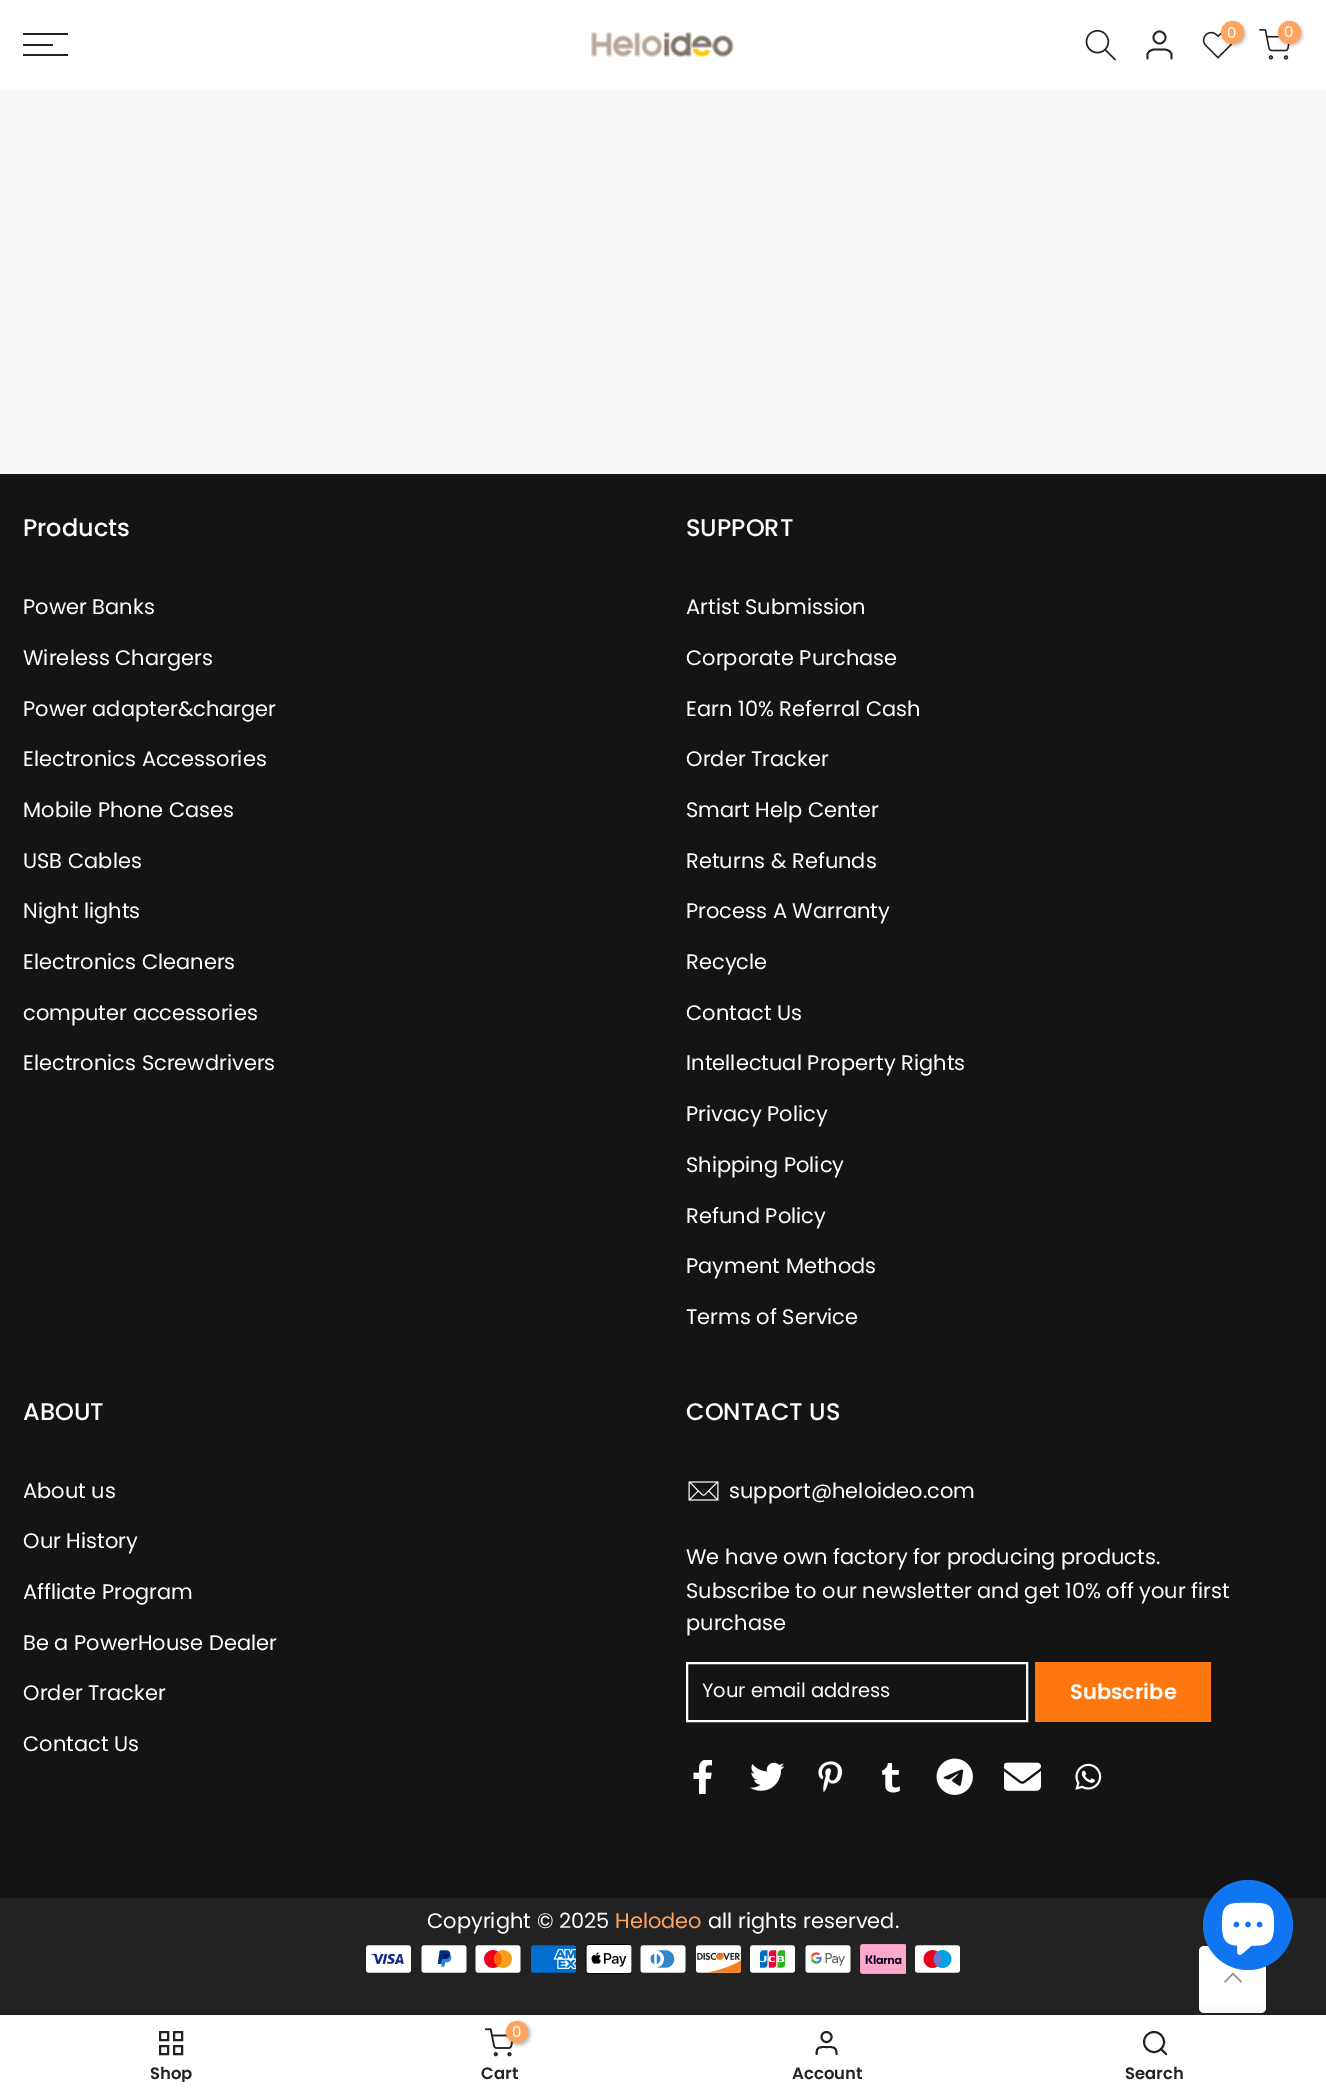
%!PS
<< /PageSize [1326 2096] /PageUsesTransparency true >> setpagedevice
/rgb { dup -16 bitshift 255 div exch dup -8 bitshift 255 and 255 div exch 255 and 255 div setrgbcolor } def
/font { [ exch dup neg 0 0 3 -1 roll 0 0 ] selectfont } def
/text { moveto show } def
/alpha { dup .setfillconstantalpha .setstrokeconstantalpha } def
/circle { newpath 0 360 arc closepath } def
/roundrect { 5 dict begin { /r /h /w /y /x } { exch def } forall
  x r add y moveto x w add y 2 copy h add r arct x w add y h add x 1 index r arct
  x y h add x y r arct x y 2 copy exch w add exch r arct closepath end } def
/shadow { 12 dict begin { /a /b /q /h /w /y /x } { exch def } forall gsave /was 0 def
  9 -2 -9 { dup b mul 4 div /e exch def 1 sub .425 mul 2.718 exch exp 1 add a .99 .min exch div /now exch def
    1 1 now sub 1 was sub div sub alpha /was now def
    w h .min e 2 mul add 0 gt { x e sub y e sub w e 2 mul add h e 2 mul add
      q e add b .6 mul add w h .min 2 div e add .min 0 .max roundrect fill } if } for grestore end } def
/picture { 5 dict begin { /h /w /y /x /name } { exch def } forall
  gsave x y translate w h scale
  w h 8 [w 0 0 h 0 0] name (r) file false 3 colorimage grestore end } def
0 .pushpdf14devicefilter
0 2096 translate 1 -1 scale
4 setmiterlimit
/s1 { /Poppins-Regular 15 font 16#FFFFFF rgb } def
/s2 { /Poppins-Medium 24 font 16#FFFFFF rgb } def
/s3 { /Poppins-Regular 21 font 16#FFFFFF rgb } def
/s4 { /Poppins-Regular 19.5 font 16#FFFFFF rgb } def
/s5 { /Poppins-SemiBold 21 font 16#FFFFFF rgb } def
/s6 { /Poppins-Regular 21 font 16#FFA45E rgb } def
/s7 { /Poppins-SemiBold 16.5 font 16#222222 rgb } def
16#F7F8FA rgb
0 0 1326 2096 rectfill
16#FFFFFF rgb
0 0 1326 90 rectfill
16#222222 rgb
23 33 45 2 rectfill
23 44 30 2 rectfill
23 54 45 2 rectfill
(pic1.raw) 591 32 143 25 picture
(pic2.raw) 1085 29 31 32 picture
1.8 setlinewidth
1159.5 37.5 6 circle stroke
1 setlinecap
1 setlinejoin
1171.5 58.5 moveto 1171.5 54.5 lineto 1170 48.5 1164 49.5 1159.5 49.5 curveto 1155 49.5 1149 48.5 1147.5 54.5 curveto 1147.5 58.5 lineto stroke
(pic3.raw) 1202 31 31 28 picture
16#000000 rgb
1223 23 22 22 11 2 0.3 shadow
16#FFA45E rgb
1232.5 32.5 11.5 circle fill
s1
(0) 1227 38 text
(pic4.raw) 1259 29 31 31 picture
16#000000 rgb
1280 23 22 22 11 2 0.3 shadow
16#FFA45E rgb
1289.5 32.5 11.5 circle fill
s1
(0) 1284 37 text
16#141414 rgb
0 474 1326 1424 rectfill
s2
(Products) 23 536 text
s3
(Power Banks) 23 614 text
(Wireless Chargers) 23 665 text
(Power adapter&charger) 23 716 text
(Electronics Accessories) 23 766 text
(Mobile Phone Cases) 23 817 text
(USB Cables) 23 868 text
(Night lights) 23 918 text
(Electronics Cleaners) 23 969 text
(computer accessories) 23 1020 text
(Electronics Screwdrivers) 23 1070 text
s2
(SUPPORT) 686 536 text
s3
(Artist Submission) 686 614 text
(Corporate Purchase) 686 665 text
(Earn 10% Referral Cash) 686 716 text
(Order Tracker) 686 766 text
(Smart Help Center) 686 817 text
(Returns & Refunds) 686 868 text
(Process A Warranty) 686 918 text
(Recycle) 686 969 text
(Contact Us) 686 1020 text
(Intellectual Property Rights) 686 1070 text
(Privacy Policy) 686 1121 text
(Shipping Policy) 686 1172 text
(Refund Policy) 686 1223 text
(Payment Methods) 686 1273 text
(Terms of Service) 686 1324 text
s2
(ABOUT) 23 1420 text
s3
(About us) 23 1498 text
(Our History) 23 1548 text
(Affliate Program) 23 1599 text
(Be a PowerHouse Dealer) 23 1650 text
(Order Tracker) 23 1700 text
(Contact Us) 23 1751 text
s2
(CONTACT US) 686 1420 text
(pic5.raw) 688 1481 31 20 picture
s3
(support@heloideo.com) 729 1498 text
(We have own factory for producing products.) 686 1564 text
(Subscribe to our newsletter and get 10% off your first) 686 1598 text
(purchase) 686 1630 text
2 setlinewidth
0 setlinecap
0 setlinejoin
687 1663 340 58 rectstroke
s4
(Your email address) 702 1697 text
16#FF770F rgb
1035 1662 176 60 rectfill
s5
(Subscribe) 1070 1699 text
(pic6.raw) 693 1760 19 34 picture
(pic7.raw) 750 1762 35 29 picture
(pic8.raw) 818 1761 25 31 picture
(pic9.raw) 882 1763 18 30 picture
(pic10.raw) 936 1758 37 37 picture
(pic11.raw) 1004 1762 37 29 picture
(pic12.raw) 1075 1763 27 27 picture
16#222222 rgb
0 1898 1326 117 rectfill
s3
(Copyright © 2025) 427 1928 text
s6
(Helodeo) 615 1928 text
s3
(all rights reserved.) 708 1928 text
(pic13.raw) 366 1945 45 28 picture
(pic14.raw) 421 1945 46 28 picture
(pic15.raw) 475 1945 46 28 picture
(pic16.raw) 531 1945 45 28 picture
(pic17.raw) 585 1944 47 30 picture
(pic18.raw) 640 1945 46 28 picture
(pic19.raw) 696 1945 45 28 picture
(pic20.raw) 750 1945 45 28 picture
(pic21.raw) 805 1945 46 28 picture
(pic22.raw) 860 1944 46 30 picture
(pic23.raw) 915 1945 45 28 picture
1199 1946 67 67 5 roundrect fill
16#1075F0 rgb
1248 1925 45 circle fill
(pic24.raw) 1221 1902 54 53 picture
(pic25.raw) 1224 1972 18 11 picture
16#000000 rgb
0 2015 1326 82 0 7 0.12 shadow
16#FFFFFF rgb
0 2015 1326 81 rectfill
16#222222 rgb
160 2032 8 8 rectstroke
174 2032 8 8 rectstroke
160 2046 8 8 rectstroke
174 2046 8 8 rectstroke
gsave
23 2066 298 16 rectclip
s7
(Shop) 150 2079 text
grestore
(pic26.raw) 485 2028 28 29 picture
16#000000 rgb
507 2022 23 23 11.5 2 0.3 shadow
16#FFA45E rgb
517 2032 11 circle fill
s1
(0) 512 2037 text
s7
(Cart) 481 2079 text
1.9 setlinewidth
826.5 2037 5 circle stroke
1 setlinecap
1 setlinejoin
836.5 2054 moveto 836.5 2046.5 833.5 2047 826.5 2047 curveto 819.5 2047 816.5 2046.5 816.5 2054 curveto stroke
(Account) 792 2079 text
0 setlinecap
0 setlinejoin
1154 2042 10 circle stroke
1 setlinecap
1 setlinejoin
1166 2054 moveto 1161 2049 lineto stroke
(Search) 1125 2079 text
.poppdf14devicefilter showpage
